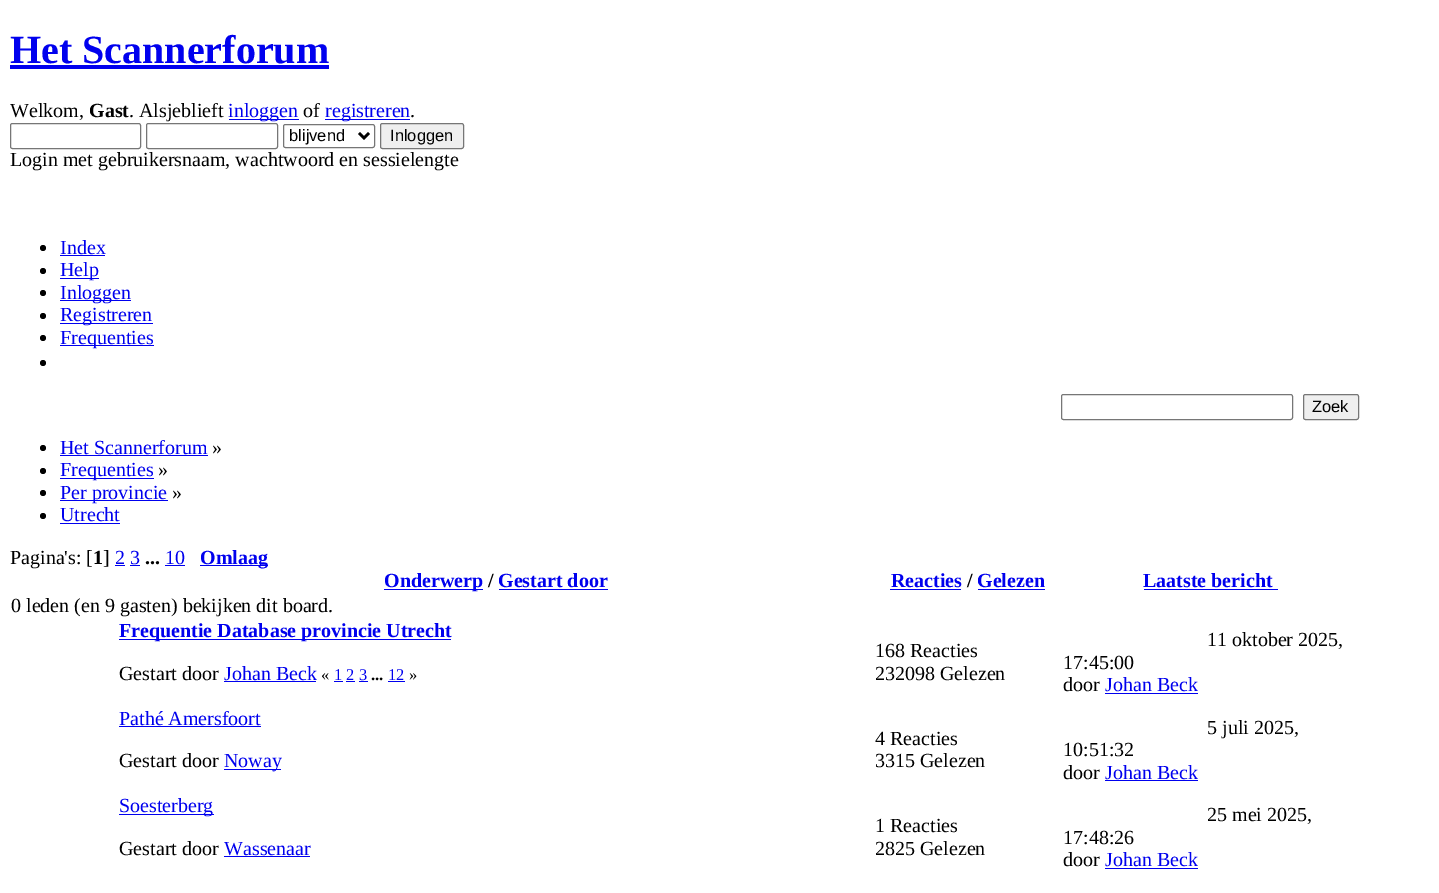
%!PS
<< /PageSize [1439 893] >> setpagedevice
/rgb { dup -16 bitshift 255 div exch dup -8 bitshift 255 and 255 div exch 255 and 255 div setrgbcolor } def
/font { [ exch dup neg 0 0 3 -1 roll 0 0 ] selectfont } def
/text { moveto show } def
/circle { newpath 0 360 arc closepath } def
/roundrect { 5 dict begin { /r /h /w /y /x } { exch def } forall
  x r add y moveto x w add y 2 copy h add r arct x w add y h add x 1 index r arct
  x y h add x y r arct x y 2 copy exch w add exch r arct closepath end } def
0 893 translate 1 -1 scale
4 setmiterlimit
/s1 { /LiberationSerif-Bold 40 font 16#0000EE rgb } def
/s2 { /LiberationSerif-Regular 20 font 16#000000 rgb } def
/s3 { /LiberationSerif-Bold 20 font 16#000000 rgb } def
/s4 { /LiberationSerif-Regular 20 font 16#0000EE rgb } def
/s5 { /LiberationSans-Regular 16.5 font 16#000000 rgb } def
/s6 { /LiberationSerif-Bold 20 font 16#0000EE rgb } def
/s7 { /LiberationSerif-Regular 16.5 font 16#000000 rgb } def
/s8 { /LiberationSerif-Regular 16.5 font 16#0000EE rgb } def
/s9 { /LiberationSerif-Bold 16.5 font 16#000000 rgb } def
16#FFFFFF rgb
0 0 1439 893 rectfill
s1
(Het Scannerforum) 10 63 text
10 65 319 4 rectfill
s2
(Welkom,) 10 117 text
s3
(Gast) 89 117 text
s2
(. Alsjeblieft) 129 117 text
16#0000EE rgb
229 119 70 1 rectfill
(inloggen) 228 117 text
s2
(of) 303 117 text
16#0000EE rgb
325 119 85 1 rectfill
(registreren) 325 117 text
s2
(.) 410 117 text
16#767676 rgb
10.5 123.5 130 25 2 roundrect stroke
146.5 123.5 131 25 2 roundrect stroke
283.5 124.5 91 23 2 roundrect stroke
16#000000 rgb
2.5 setlinewidth
359 133 moveto 364 138 lineto 369 133 lineto stroke
s5
(blijvend) 289 141 text
16#EFEFEF rgb
380.5 123.5 83 25 2 roundrect gsave fill grestore
16#767676 rgb
1 setlinewidth
stroke
s5
(Inloggen) 390 141 text
s2
(Login met gebruikersnaam, wachtwoord en sessielengte) 10 166 text
43 248 3 circle fill
s4
(Index) 60 254 text
60 255 45 1 rectfill
16#000000 rgb
43 271 3 circle fill
16#0000EE rgb
60 278 39 1 rectfill
(Help) 60 276 text
16#000000 rgb
43 293 3 circle fill
16#0000EE rgb
60 300 71 1 rectfill
(Inloggen) 60 299 text
16#000000 rgb
43 316 3 circle fill
16#0000EE rgb
60 323 93 1 rectfill
(Registreren) 60 321 text
16#000000 rgb
43 338 3 circle fill
16#0000EE rgb
60 345 94 1 rectfill
(Frequenties) 60 344 text
16#000000 rgb
43 363 3 circle fill
16#767676 rgb
1061.5 394.5 231 25 2 roundrect stroke
16#EFEFEF rgb
1303.5 394.5 55 25 2 roundrect gsave fill grestore
16#767676 rgb
stroke
s5
(Zoek) 1312 412 text
43 448 3 circle fill
s4
(Het Scannerforum) 60 454 text
60 455 148 1 rectfill
s2
(») 212 454 text
43 471 3 circle fill
16#0000EE rgb
60 478 94 1 rectfill
(Frequenties) 60 476 text
s2
(») 158 476 text
43 493 3 circle fill
16#0000EE rgb
60 500 108 1 rectfill
(Per provincie) 60 499 text
s2
(») 172 499 text
43 516 3 circle fill
s4
(Utrecht) 60 521 text
60 523 60 1 rectfill
s2
(Pagina's: [) 10 564 text
s3
(1) 93 564 text
s2
(]) 103 564 text
s4
(2 3) 115 564 text
115 565 10 1 rectfill
s3
(...) 145 564 text
s4
(10) 165 564 text
165 565 20 1 rectfill
200 565 68 1 rectfill
s6
(Omlaag) 200 564 text
130 565 10 1 rectfill
384 589 99 1 rectfill
(Onderwerp) 384 587 text
s3
(/) 488 587 text
s6
(Gestart door) 498 587 text
499 589 109 1 rectfill
(Reacties) 891 587 text
890 589 71 1 rectfill
s3
(/) 967 587 text
s6
(Gelezen) 977 587 text
978 589 67 1 rectfill
(Laatste bericht) 1143 587 text
1144 589 134 1 rectfill
s2
(0 leden \(en 9 gasten\) bekijken dit board.) 11 612 text
16#0000EE rgb
119 639 332 1 rectfill
s6
(Frequentie Database provincie Utrecht) 119 637 text
s2
(Gestart door) 119 680 text
s4
(Johan Beck) 224 680 text
224 681 92 1 rectfill
s7
(«) 321 680 text
s8
(1 2 3) 334 680 text
334 681 9 1 rectfill
346 681 9 1 rectfill
s9
(...) 371 680 text
16#0000EE rgb
359 681 9 1 rectfill
388 681 17 1 rectfill
s8
(12) 388 680 text
s7
(») 409 680 text
s2
(168 Reacties) 875 657 text
(232098 Gelezen) 875 680 text
(11 oktober 2025,) 1207 646 text
(17:45:00) 1063 669 text
(door) 1063 691 text
s4
(Johan Beck) 1105 691 text
1105 693 93 1 rectfill
(Pathé Amersfoort) 119 725 text
119 726 142 1 rectfill
s2
(Gestart door) 119 767 text
16#0000EE rgb
224 769 57 1 rectfill
(Noway) 224 767 text
s2
(4 Reacties) 875 745 text
(3315 Gelezen) 875 767 text
(5 juli 2025,) 1207 734 text
(10:51:32) 1063 756 text
(door) 1063 779 text
s4
(Johan Beck) 1105 779 text
1105 780 93 1 rectfill
119 814 95 1 rectfill
(Soesterberg) 119 812 text
s2
(Gestart door) 119 855 text
s4
(Wassenaar) 224 855 text
224 856 86 1 rectfill
s2
(1 Reacties) 875 832 text
(2825 Gelezen) 875 855 text
(25 mei 2025,) 1207 821 text
(17:48:26) 1063 844 text
(door) 1063 866 text
s4
(Johan Beck) 1105 866 text
1105 868 93 1 rectfill
showpage
